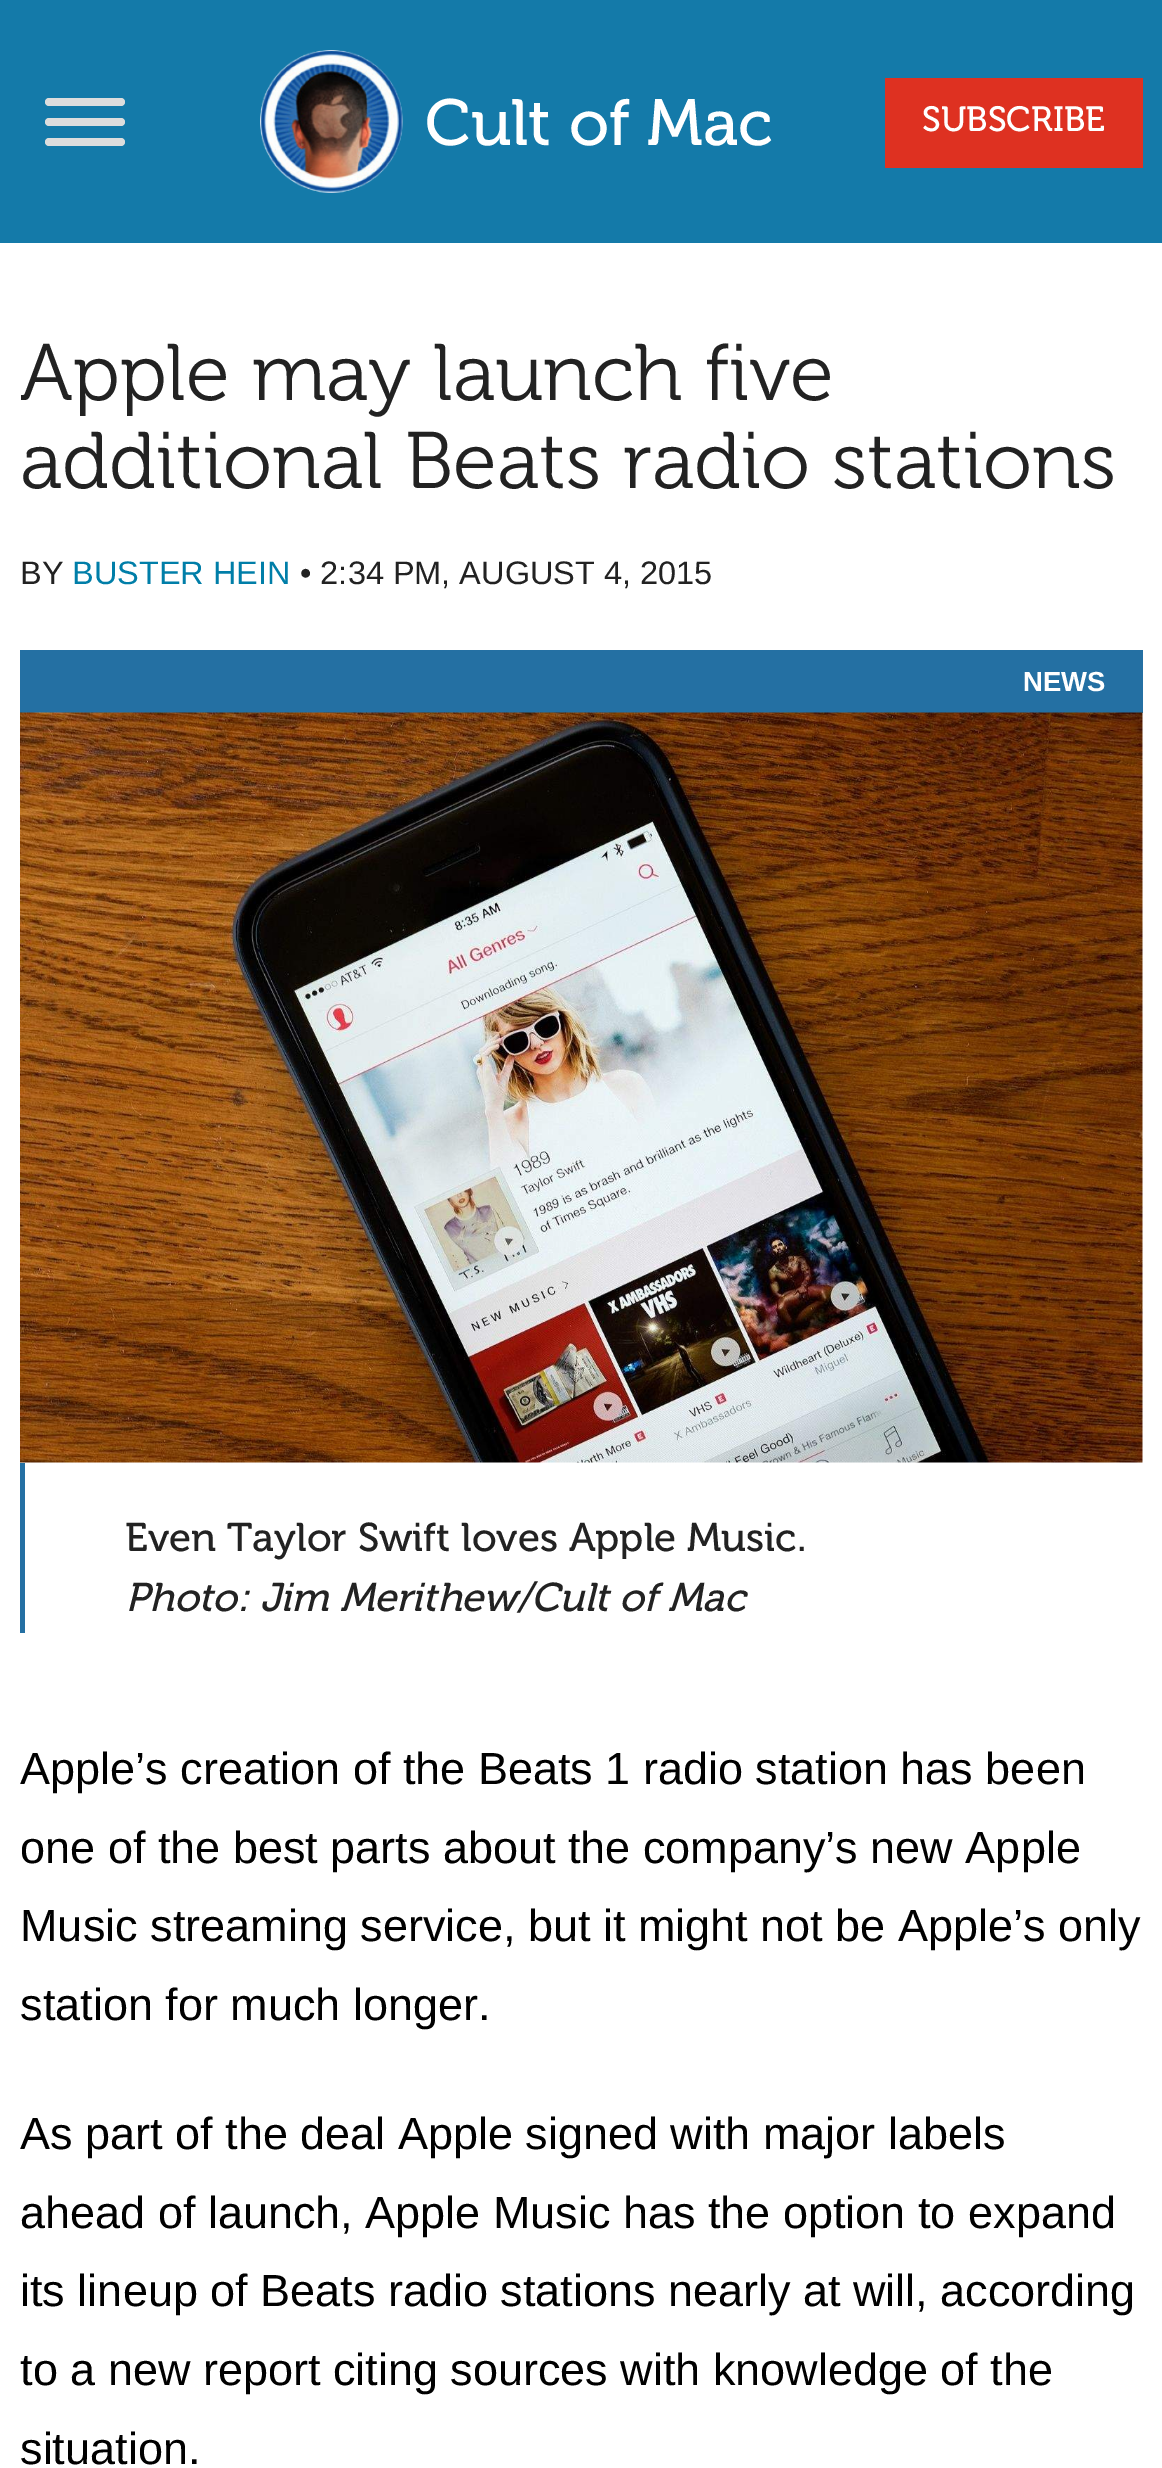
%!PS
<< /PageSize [1162 2468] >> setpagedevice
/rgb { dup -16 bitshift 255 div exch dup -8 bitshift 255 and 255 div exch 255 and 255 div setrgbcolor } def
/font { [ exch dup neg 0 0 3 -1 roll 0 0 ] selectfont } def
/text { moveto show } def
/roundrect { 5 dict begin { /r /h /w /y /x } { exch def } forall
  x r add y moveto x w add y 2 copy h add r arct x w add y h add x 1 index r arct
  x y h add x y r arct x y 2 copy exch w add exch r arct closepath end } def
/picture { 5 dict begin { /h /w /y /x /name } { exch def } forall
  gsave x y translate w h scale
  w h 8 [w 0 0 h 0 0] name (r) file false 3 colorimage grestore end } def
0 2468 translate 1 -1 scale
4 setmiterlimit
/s1 { /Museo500-Regular 65 font 16#FFFFFF rgb } def
/s2 { /Museo500-Regular 35 font 16#FFFFFF rgb } def
/s3 { /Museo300-Regular 80 font 16#222222 rgb } def
/s4 { /LiberationSans-Regular 32.5 font 16#222222 rgb } def
/s5 { /LiberationSans-Regular 32.5 font 16#007EA8 rgb } def
/s6 { /LiberationSans-Bold 27.5 font 16#FFFFFF rgb } def
/s7 { /Museo500-Regular 40 font 16#222222 rgb } def
/s8 { /Museo500-Italic 40 font 16#222222 rgb } def
/s9 { /LiberationSans-Regular 45 font 16#000000 rgb } def
16#FFFFFF rgb
0 0 1162 2468 rectfill
16#147AA9 rgb
0 0 1162 243 rectfill
16#DDDDDD rgb
45 98 80 8 4 roundrect fill
45 118 80 8 4 roundrect fill
45 138 80 8 4 roundrect fill
(pic1.raw) 260 50 143 143 picture
s1
(Cult of Mac) 425 145 text
16#DE3121 rgb
885 78 258 90 rectfill
s2
(SUBSCRIBE) 922 131 text
s3
(Apple may launch five) 20 400 text
(additional Beats radio stations) 20 488 text
s4
(BY) 20 584 text
s5
(BUSTER HEIN) 72 584 text
s4
(• 2:34 PM, AUGUST 4, 2015) 300 584 text
16#2470A3 rgb
20 650 1123 63 rectfill
s6
(NEWS) 1023 691 text
(pic2.raw) 20 712 1123 751 picture
16#2470A3 rgb
20 1463 5 170 rectfill
s7
(Even Taylor Swift loves Apple Music.) 125 1551 text
s8
(Photo: Jim Merithew/Cult of Mac) 125 1611 text
s9
(Apple’s creation of the Beats 1 radio station has been) 20 1784 text
(one of the best parts about the company’s new Apple) 20 1863 text
(Music streaming service, but it might not be Apple’s only) 20 1941 text
(station for much longer.) 20 2020 text
(As part of the deal Apple signed with major labels) 20 2149 text
(ahead of launch, Apple Music has the option to expand) 20 2228 text
(its lineup of Beats radio stations nearly at will, according) 20 2306 text
(to a new report citing sources with knowledge of the) 20 2385 text
(situation.) 20 2464 text
showpage
